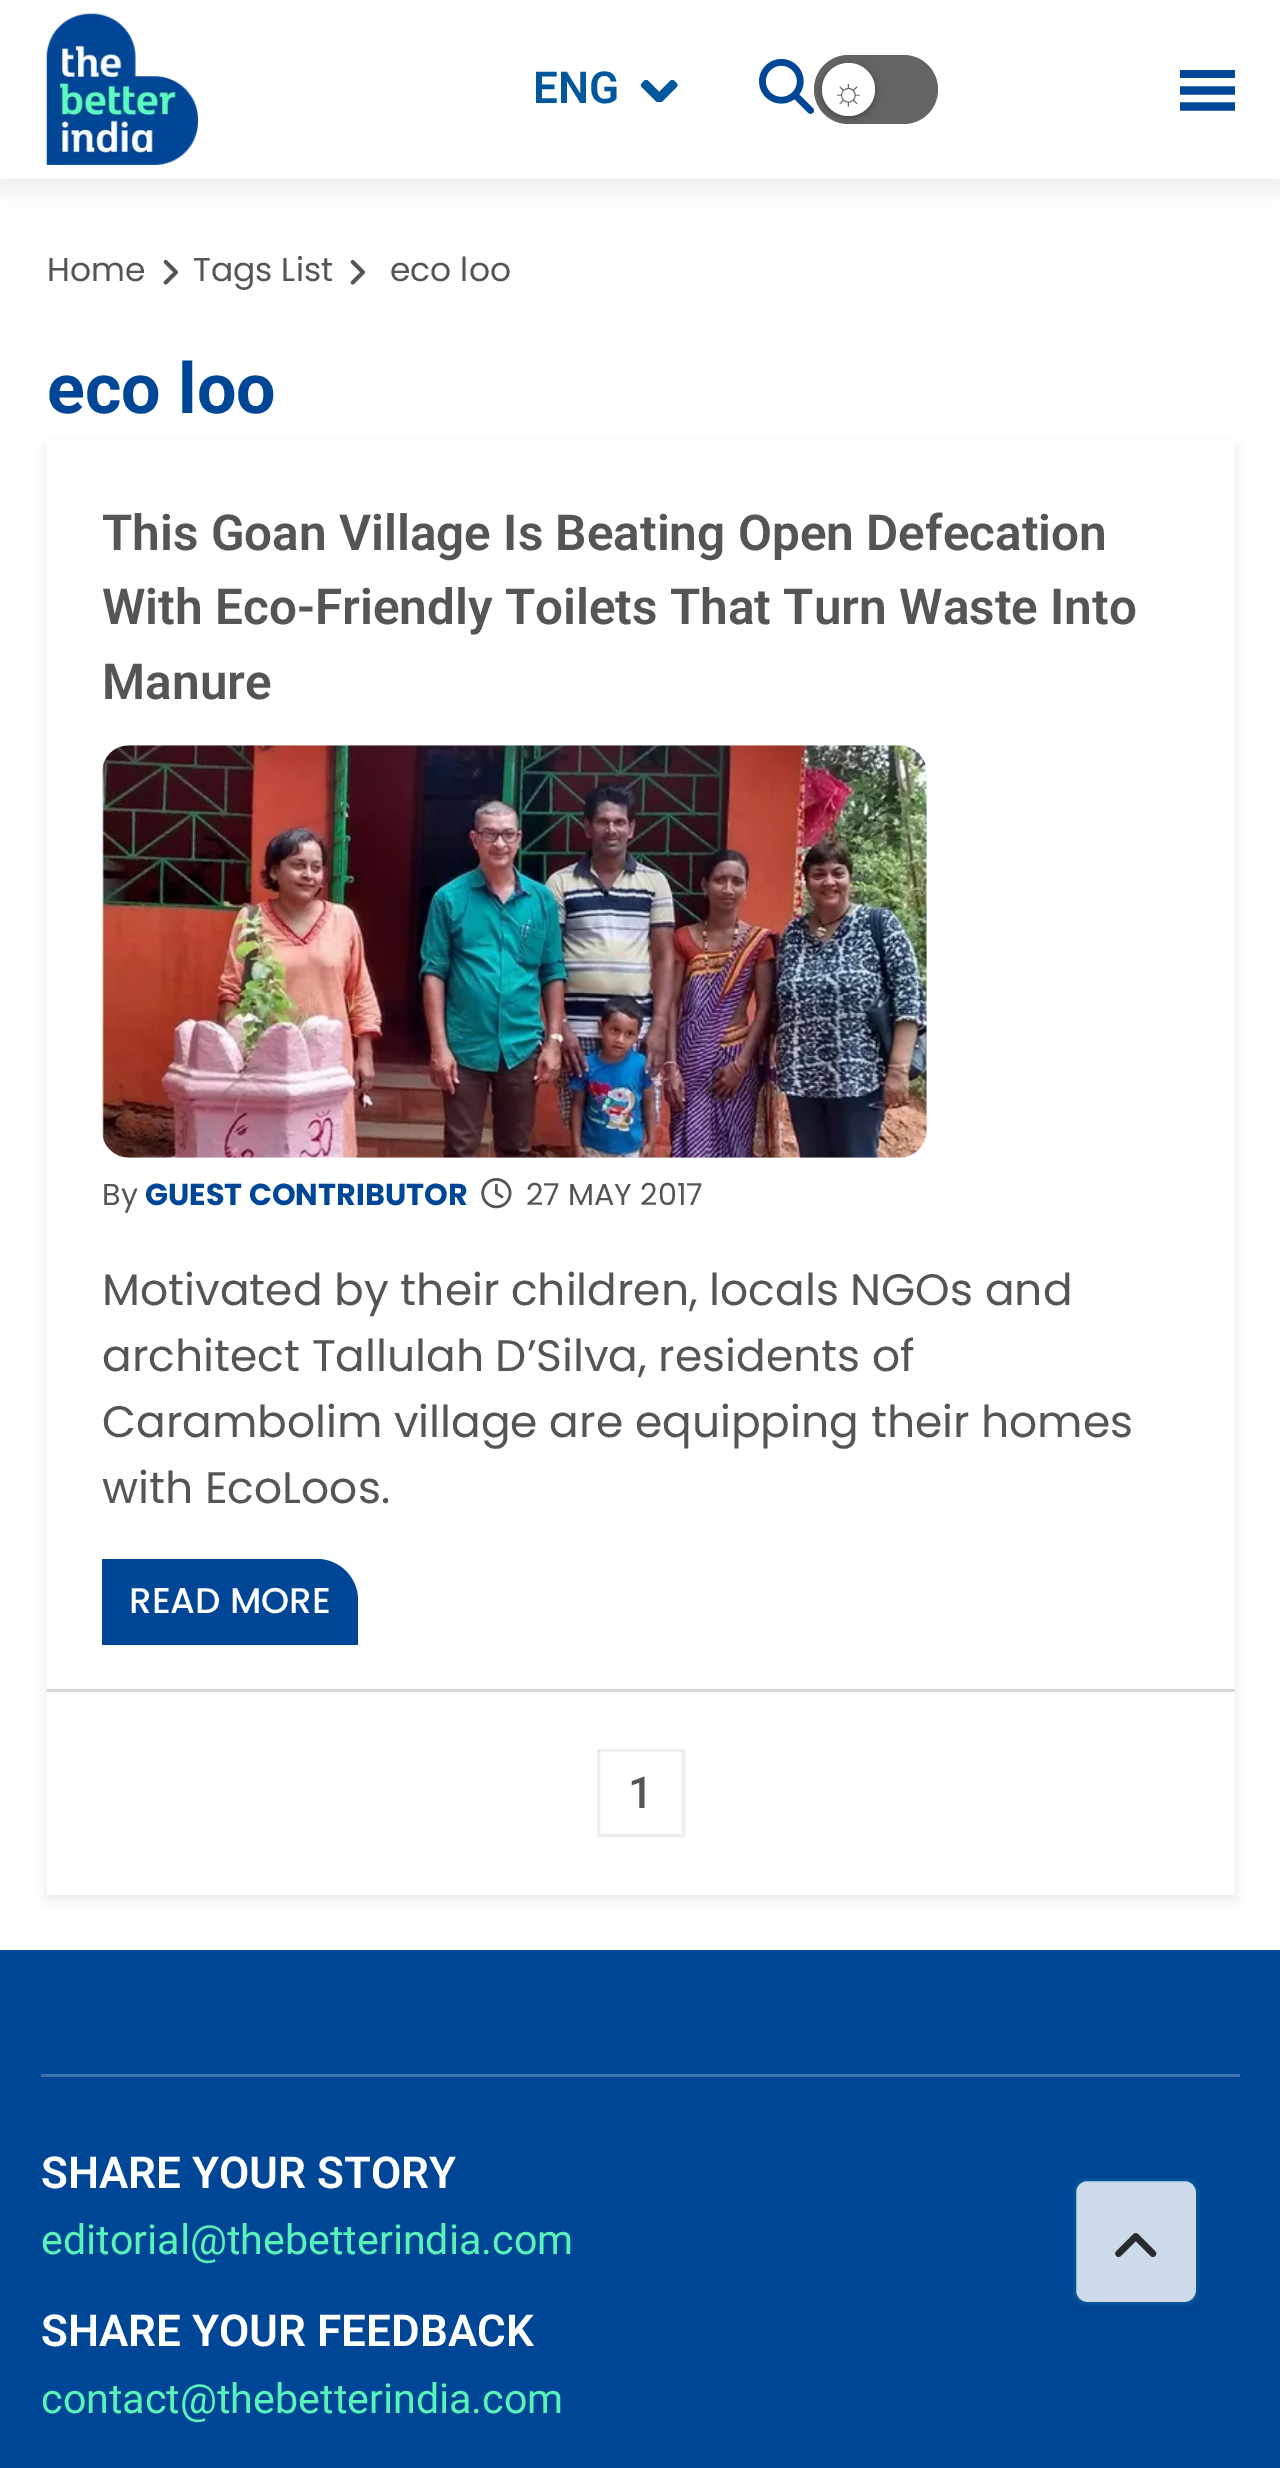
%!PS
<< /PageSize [1280 2468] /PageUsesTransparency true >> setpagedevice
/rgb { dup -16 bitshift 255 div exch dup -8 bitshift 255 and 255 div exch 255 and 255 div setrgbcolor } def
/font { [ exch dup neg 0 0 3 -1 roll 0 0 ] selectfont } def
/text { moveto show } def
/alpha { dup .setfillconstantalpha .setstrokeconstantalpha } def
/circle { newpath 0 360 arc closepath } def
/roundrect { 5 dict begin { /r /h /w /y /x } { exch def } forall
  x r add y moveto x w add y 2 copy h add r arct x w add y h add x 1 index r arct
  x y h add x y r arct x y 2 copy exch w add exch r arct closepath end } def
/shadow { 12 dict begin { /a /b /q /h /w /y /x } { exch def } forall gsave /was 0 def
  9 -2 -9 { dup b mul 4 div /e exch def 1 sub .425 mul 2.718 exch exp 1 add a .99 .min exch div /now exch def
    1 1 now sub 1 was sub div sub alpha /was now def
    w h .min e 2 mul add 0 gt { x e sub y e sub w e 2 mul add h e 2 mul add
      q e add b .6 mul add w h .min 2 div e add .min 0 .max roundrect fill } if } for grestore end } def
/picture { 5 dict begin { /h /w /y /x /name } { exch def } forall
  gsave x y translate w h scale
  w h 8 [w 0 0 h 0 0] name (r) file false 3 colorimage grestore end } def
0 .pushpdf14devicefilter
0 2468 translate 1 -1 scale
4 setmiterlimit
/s1 { /Roboto-SemiBold 44 font 16#01579B rgb } def
/s2 { /LiberationSans-Regular 38 font 16#666666 rgb } def
/s3 { /Poppins-Regular 33 font 16#555555 rgb } def
/s4 { /Roboto-Bold 70 font 16#004697 rgb } def
/s5 { /Roboto-SemiBold 49.5 font 16#555555 rgb } def
/s6 { /Poppins-Regular 30.25 font 16#555555 rgb } def
/s7 { /Poppins-Bold 30.25 font 16#004697 rgb } def
/s8 { /Poppins-Regular 44 font 16#555555 rgb } def
/s9 { /Poppins-Medium 35.75 font 16#FFFFFF rgb } def
/s10 { /Roboto-Medium 44 font 16#555555 rgb } def
/s11 { /Roboto-SemiBold 44 font 16#FFFFFF rgb } def
/s12 { /Roboto-Regular 41.25 font 16#59F3B9 rgb } def
16#FFFFFF rgb
0 0 1280 2468 rectfill
16#000000 rgb
0 6 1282 178 0 14 0.1 shadow
16#FFFFFF rgb
0 0 1280 179 rectfill
(pic1.raw) 46 13 152 152 picture
s1
(ENG) 533 103 text
(pic2.raw) 640 80 38 22 picture
(pic3.raw) 759 58 55 56 picture
16#646464 rgb
814 55 124 69 34.5 roundrect fill
16#000000 rgb
822 66 53 52 26 4 0.3 shadow
16#FFFFFF rgb
848.5 89.5 26.5 circle fill
s2
(☼) 831 104 text
16#004697 rgb
1180 70 55 8 rectfill
8.3 setlinewidth
1180 106.5 moveto 1235 106.5 lineto 1180 90.5 moveto 1235 90.5 lineto stroke
s3
(Home) 47 281 text
(pic4.raw) 163 259 15 26 picture
(Tags List) 193 281 text
(pic4.raw) 350 259 15 26 picture
(eco loo) 390 281 text
s4
(eco loo) 47 413 text
gsave
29 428 moveto 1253 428 lineto 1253 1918 lineto 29 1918 lineto closepath 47 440 moveto 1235 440 lineto 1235 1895 lineto 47 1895 lineto closepath eoclip newpath
16#000000 rgb
47 446 1188 1454 0 5.5 0.08 shadow
grestore
0.16 alpha
16#000000 rgb
47 1689 1188 3 rectfill
1 alpha
s5
(This Goan Village Is Beating Open Defecation) 102 550 text
(With Eco-Friendly Toilets That Turn Waste Into) 102 624 text
(Manure) 102 699 text
(pic5.raw) 101 745 826 413 picture
s6
(By) 102 1205 text
s7
(GUEST CONTRIBUTOR) 145 1205 text
(pic6.raw) 481 1178 31 31 picture
s6
(27 MAY 2017) 526 1205 text
s8
(Motivated by their children, locals NGOs and) 102 1305 text
(architect Tallulah D’Silva, residents of) 102 1371 text
(Carambolim village are equipping their homes) 102 1437 text
(with EcoLoos.) 102 1503 text
16#004697 rgb
102 1559 moveto 317 1559 lineto 339.5 1559 358 1577.5 358 1600 curveto 358 1645 lineto 102 1645 lineto closepath fill
s9
(READ MORE) 129 1613 text
16#EEEEEE rgb
3 setlinewidth
598.5 1750.5 85 85 rectstroke
s10
(1) 628 1808 text
16#004697 rgb
0 1950 1280 518 rectfill
16#4074B1 rgb
41 2074 1199 3 rectfill
s11
(SHARE YOUR STORY) 41 2188 text
s12
(editorial@thebetterindia.com) 41 2254 text
s11
(SHARE YOUR FEEDBACK) 41 2346 text
s12
(contact@thebetterindia.com) 41 2413 text
16#000E1E rgb
1073 2184 126 126 14 8 0.1 shadow
16#CCDAEA rgb
1074.5 2179.5 123 124 12.5 roundrect gsave fill grestore
16#01549A rgb
stroke
(pic7.raw) 1115 2233 42 24 picture
.poppdf14devicefilter showpage
